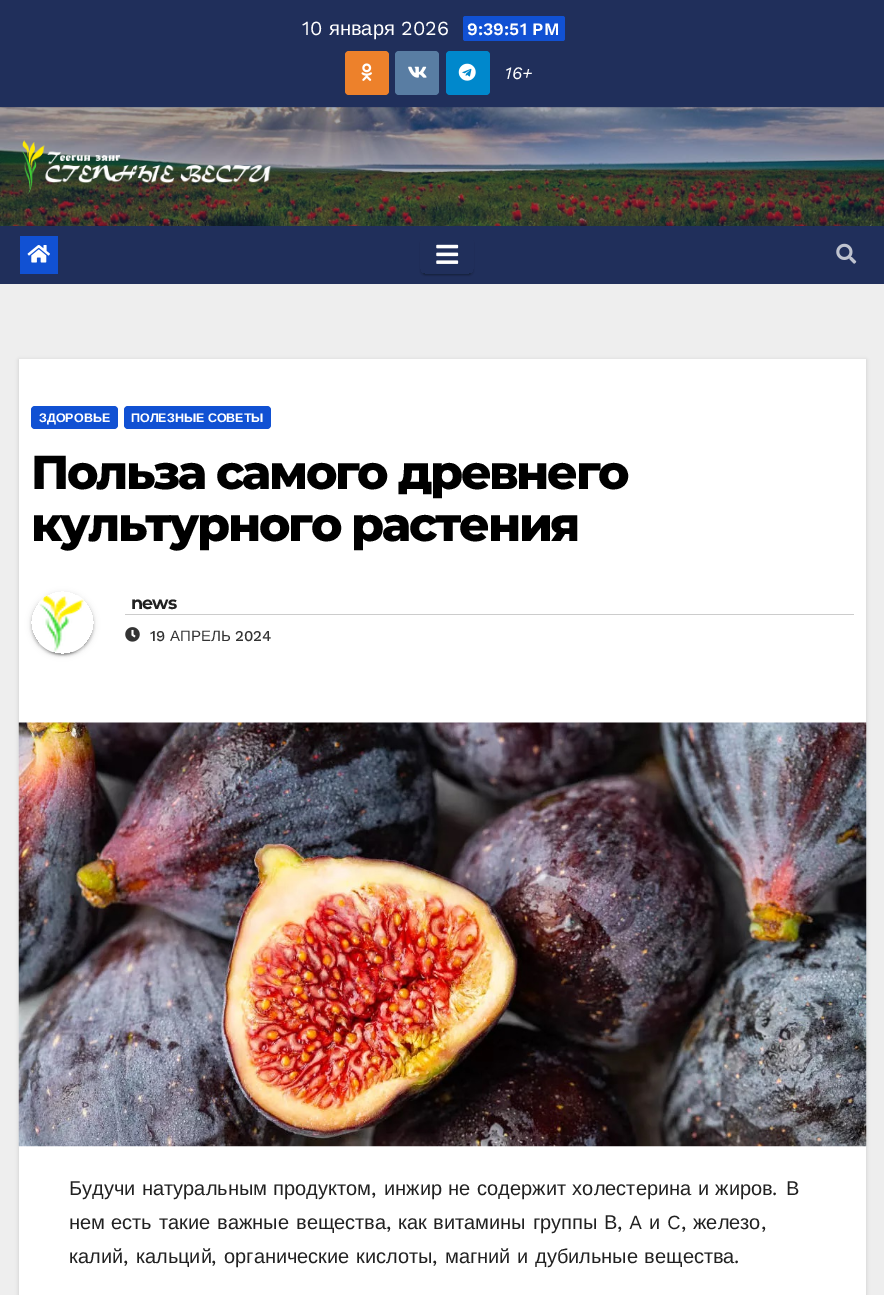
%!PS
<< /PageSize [884 1295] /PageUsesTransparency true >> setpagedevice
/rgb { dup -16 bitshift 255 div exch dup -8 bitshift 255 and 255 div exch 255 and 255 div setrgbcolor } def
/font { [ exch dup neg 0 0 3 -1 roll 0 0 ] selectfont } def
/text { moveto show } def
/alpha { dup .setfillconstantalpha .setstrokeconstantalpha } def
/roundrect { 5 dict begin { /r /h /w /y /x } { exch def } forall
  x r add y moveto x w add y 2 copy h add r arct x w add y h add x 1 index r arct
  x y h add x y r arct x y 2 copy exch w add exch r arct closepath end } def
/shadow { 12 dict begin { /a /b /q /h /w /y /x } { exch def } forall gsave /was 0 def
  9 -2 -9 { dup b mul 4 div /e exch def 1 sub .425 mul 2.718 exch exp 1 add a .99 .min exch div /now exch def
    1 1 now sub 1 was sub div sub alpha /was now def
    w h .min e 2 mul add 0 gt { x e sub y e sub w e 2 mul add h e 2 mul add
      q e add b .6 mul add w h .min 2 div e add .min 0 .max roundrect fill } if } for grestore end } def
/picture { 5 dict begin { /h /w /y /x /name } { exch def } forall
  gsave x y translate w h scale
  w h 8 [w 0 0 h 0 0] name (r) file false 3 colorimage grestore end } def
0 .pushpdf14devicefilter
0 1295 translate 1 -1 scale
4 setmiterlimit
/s1 { /WorkSans-Regular 20 font 16#FFFFFF rgb } def
/s2 { /LiberationSans-Regular 20 font 16#FFFFFF rgb } def
/s3 { /WorkSans-SemiBold 17.5 font 16#FFFFFF rgb } def
/s4 { /WorkSans-Italic 17.5 font 16#FFFFFF rgb } def
/s5 { /LiberationSans-Bold 12.5 font 16#FFFFFF rgb } def
/s6 { /WorkSans-Medium 15 font 16#333333 rgb } def
/s7 { /LiberationSans-Regular 15 font 16#333333 rgb } def
/s8 { /WorkSans-Regular 20 font 16#212121 rgb } def
/s9 { /LiberationSans-Regular 20 font 16#212121 rgb } def
16#EEEEEE rgb
0 0 884 1295 rectfill
16#202F5B rgb
0 0 884 108 rectfill
s1
(10) 302 35 text
s2
(января) 329 35 text
s1
(2026) 401 35 text
16#1151D3 rgb
463 16 102 25 2.5 roundrect fill
s3
(9:39:51 PM) 467 35 text
16#ED812B rgb
345 51 44 44 4 roundrect fill
(pic1.raw) 361 63 11 18 picture
16#597DA3 rgb
395 51 44 44 4 roundrect fill
(pic2.raw) 408 66 19 12 picture
16#0088CC rgb
446 51 44 44 4 roundrect fill
(pic3.raw) 458 63 18 18 picture
s4
(16+) 505 79 text
(pic4.raw) 0 107 884 119 picture
(pic5.raw) 20 139 251 55 picture
16#202F5B rgb
0 226 884 58 rectfill
16#1151D3 rgb
20 236 38 38 rectfill
(pic6.raw) 27 245 23 18 picture
gsave
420 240 moveto 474 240 lineto 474 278 lineto 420 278 lineto closepath 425 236 moveto 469 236 lineto 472 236 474 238 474 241 curveto 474 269 lineto 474 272 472 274 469 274 curveto 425 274 lineto 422 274 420 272 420 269 curveto 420 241 lineto 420 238 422 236 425 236 curveto closepath eoclip newpath
16#000000 rgb
423 243 48 32 2.5 0.5 0.2 shadow
grestore
gsave
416 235 moveto 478 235 lineto 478 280 lineto 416 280 lineto closepath 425 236 moveto 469 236 lineto 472 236 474 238 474 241 curveto 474 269 lineto 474 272 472 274 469 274 curveto 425 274 lineto 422 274 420 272 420 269 curveto 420 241 lineto 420 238 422 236 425 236 curveto closepath eoclip newpath
16#000000 rgb
420 239 54 37 5 1 0.14 shadow
grestore
(pic7.raw) 436 244 23 20 picture
(pic8.raw) 836 243 21 21 picture
16#000000 rgb
19 360 847 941 0 2 0.15 shadow
16#FFFFFF rgb
19 359 847 936 rectfill
16#1151D3 rgb
31 406 87 23 4 roundrect fill
s5
(ЗДОРОВЬЕ) 39 422 text
16#1151D3 rgb
124 406 147 23 4 roundrect fill
s5
(ПОЛЕЗНЫЕ СОВЕТЫ) 131 422 text
/Montserrat-ExtraBold 47.5 font
16#000000 rgb
31 489 moveto -2.4 0 (Польза самого древнего) ashow
31 541 moveto -2.4 0 (культурного растения) ashow
gsave
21 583 moveto 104 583 lineto 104 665 lineto 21 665 lineto closepath 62.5 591 moveto 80 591 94 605 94 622.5 curveto 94 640 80 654 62.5 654 curveto 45 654 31 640 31 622.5 curveto 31 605 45 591 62.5 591 curveto closepath eoclip newpath
31 593 63 62 31 3 0.12 shadow
grestore
gsave
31 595 moveto 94 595 lineto 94 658 lineto 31 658 lineto closepath 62.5 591 moveto 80 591 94 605 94 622.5 curveto 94 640 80 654 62.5 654 curveto 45 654 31 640 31 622.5 curveto 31 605 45 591 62.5 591 curveto closepath eoclip newpath
34 598 57 57 28.5 0.5 0.2 shadow
grestore
gsave
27 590 moveto 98 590 lineto 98 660 lineto 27 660 lineto closepath 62.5 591 moveto 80 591 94 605 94 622.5 curveto 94 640 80 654 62.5 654 curveto 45 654 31 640 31 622.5 curveto 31 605 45 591 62.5 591 curveto closepath eoclip newpath
31 594 63 62 31 1 0.14 shadow
grestore
(pic9.raw) 39 595 45 57 picture
16#CCCCCC rgb
125 614 729 1 rectfill
/Montserrat-Bold 17.5 font
16#212121 rgb
131 609 moveto -1 0 (news) ashow
(pic10.raw) 125 627 15 15 picture
s6
(19) 150 641 text
s7
(АПРЕЛЬ) 170 641 text
s6
(2024) 235 641 text
(pic11.raw) 18 722 849 425 picture
/LiberationSans-Regular 20 font
16#212121 rgb
69 1195 moveto 1 0 32 (Будучи натуральным продуктом) widthshow
s8
(,) 371 1195 text
/LiberationSans-Regular 20 font
384 1195 moveto 1 0 32 (инжир не содержит холестерина и жиров) widthshow
s8
(.) 772 1195 text
s9
(В) 786 1195 text
(нем) 69 1229 text
(есть) 111 1229 text
(такие) 159 1229 text
(важные) 217 1229 text
(вещества) 296 1229 text
s8
(,) 386 1229 text
s9
(как) 398 1229 text
(витамины) 433 1229 text
(группы) 533 1229 text
(В) 604 1229 text
s8
(, A) 617 1229 text
s9
(и) 649 1229 text
s8
(C,) 667 1229 text
s9
(железо) 693 1229 text
s8
(,) 761 1229 text
s9
(калий) 69 1263 text
s8
(,) 123 1263 text
s9
(кальций) 136 1263 text
s8
(,) 211 1263 text
/LiberationSans-Regular 20 font
224 1263 moveto 1 0 32 (органические кислоты) widthshow
s8
(,) 432 1263 text
/LiberationSans-Regular 20 font
445 1263 moveto 1 0 32 (магний и дубильные вещества) widthshow
s8
(.) 734 1263 text
.poppdf14devicefilter showpage
